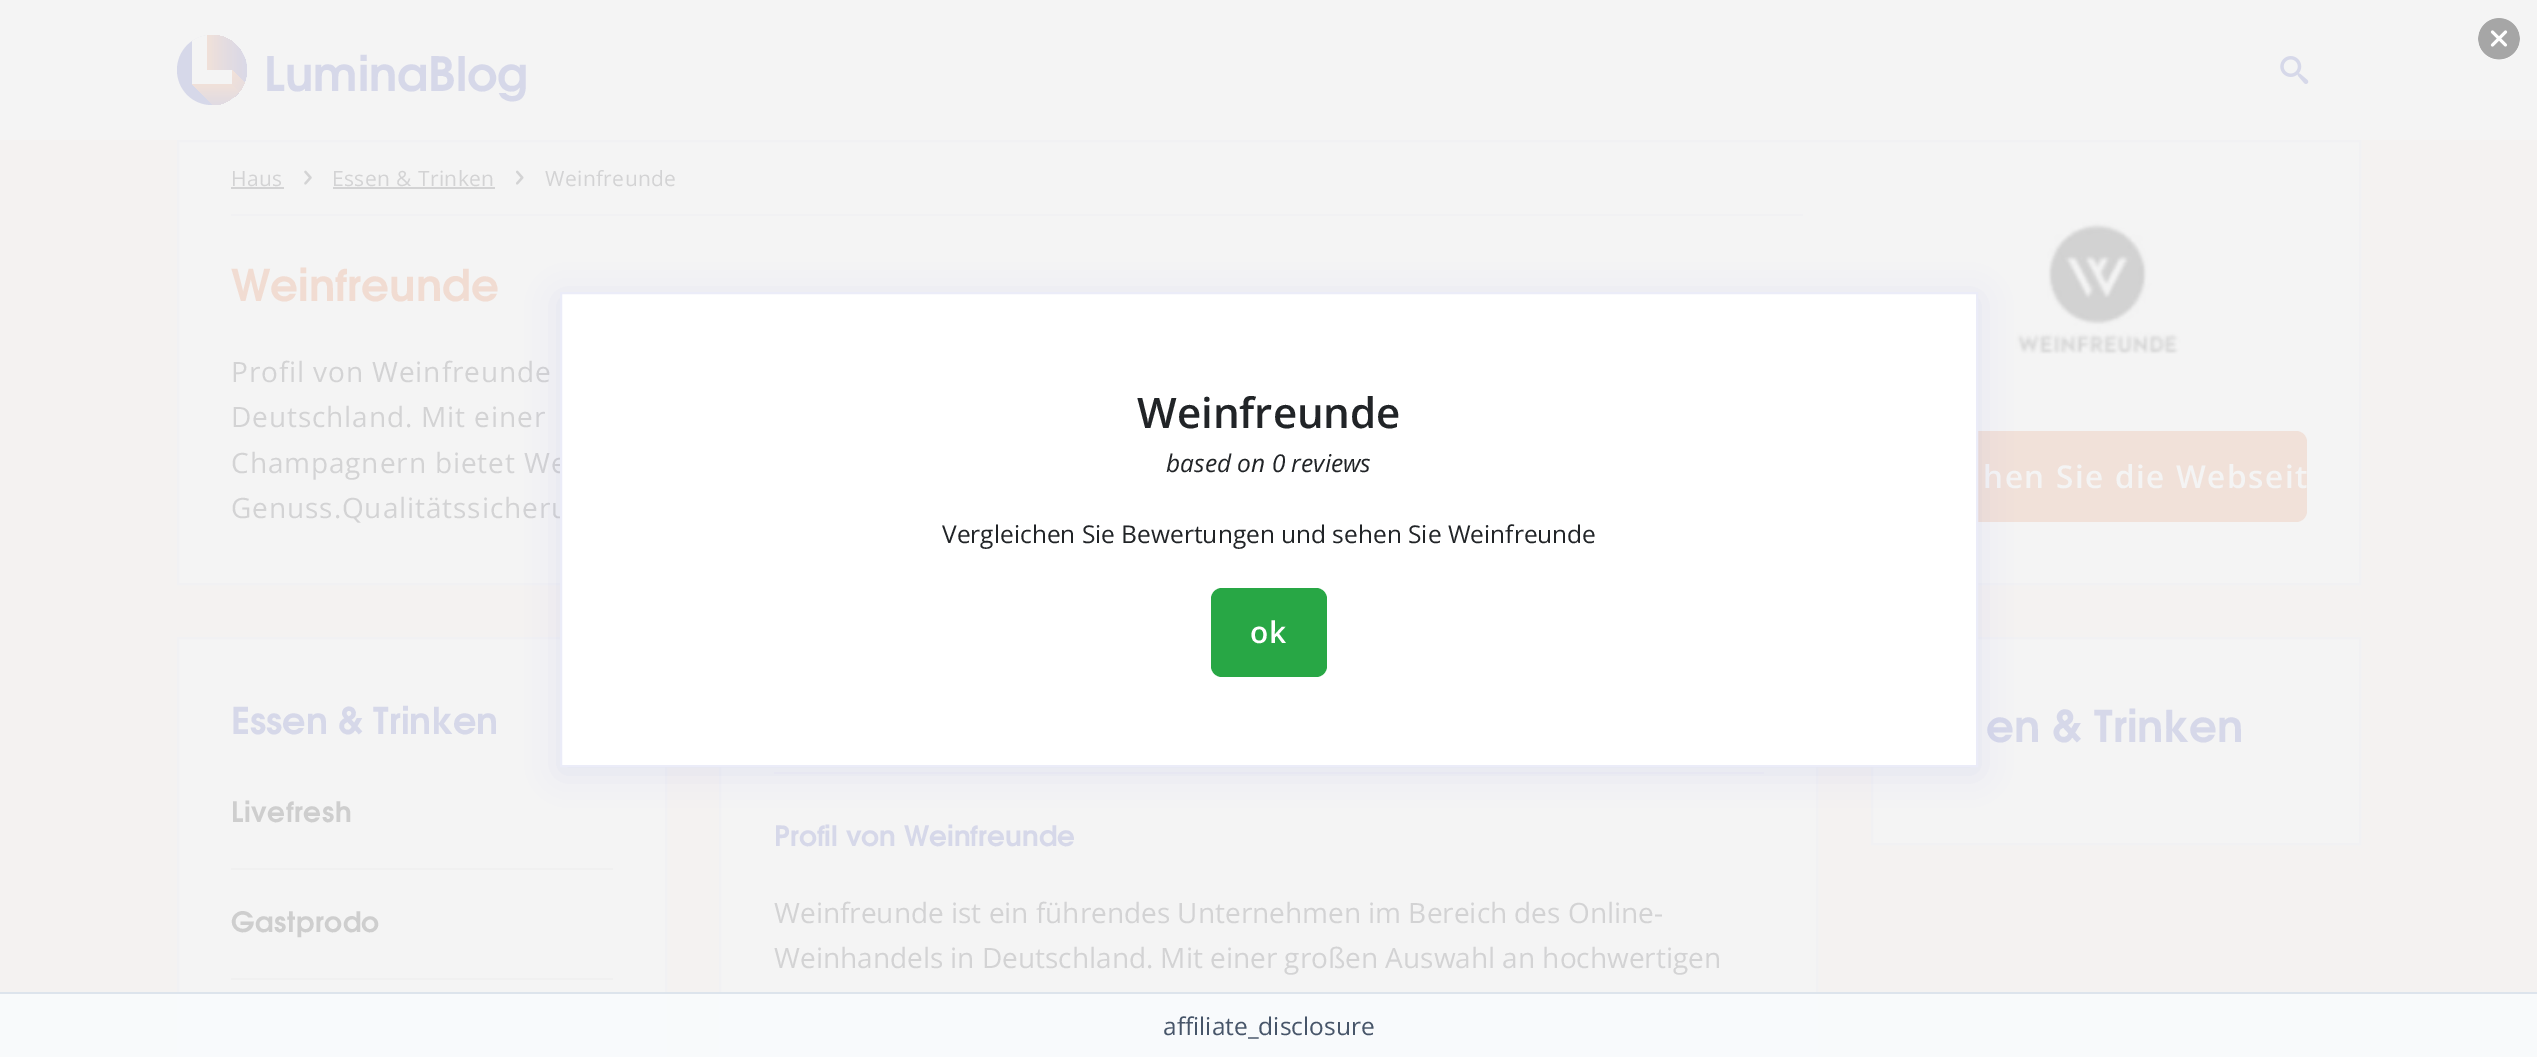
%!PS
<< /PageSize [2537 1057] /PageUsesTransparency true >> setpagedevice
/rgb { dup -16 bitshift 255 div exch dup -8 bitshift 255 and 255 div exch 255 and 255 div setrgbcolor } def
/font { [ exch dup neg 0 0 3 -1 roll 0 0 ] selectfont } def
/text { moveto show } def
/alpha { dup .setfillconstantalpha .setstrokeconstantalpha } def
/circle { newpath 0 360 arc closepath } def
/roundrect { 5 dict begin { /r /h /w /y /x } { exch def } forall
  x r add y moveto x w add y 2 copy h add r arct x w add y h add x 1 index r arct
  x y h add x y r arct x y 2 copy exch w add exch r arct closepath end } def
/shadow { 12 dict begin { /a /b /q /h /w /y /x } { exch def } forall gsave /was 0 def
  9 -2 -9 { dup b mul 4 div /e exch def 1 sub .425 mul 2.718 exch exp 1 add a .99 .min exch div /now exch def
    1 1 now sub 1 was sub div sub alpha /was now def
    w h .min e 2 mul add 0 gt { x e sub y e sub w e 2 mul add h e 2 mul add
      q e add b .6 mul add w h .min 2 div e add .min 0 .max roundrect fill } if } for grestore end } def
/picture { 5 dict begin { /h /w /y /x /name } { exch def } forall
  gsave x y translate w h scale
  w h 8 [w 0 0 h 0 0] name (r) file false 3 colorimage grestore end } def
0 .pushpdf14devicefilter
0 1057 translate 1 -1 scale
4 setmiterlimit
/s1 { /TeXGyreAdventor-Bold 47.25 font 16#D6D8E9 rgb } def
/s2 { /TeXGyreAdventor-Bold 43.75 font 16#F1DCD2 rgb } def
/s3 { /TeXGyreAdventor-Bold 36.75 font 16#D6D8E9 rgb } def
/s4 { /TeXGyreAdventor-Bold 43.75 font 16#D6D8E9 rgb } def
/s5 { /TeXGyreAdventor-Bold 28 font 16#D6D8E9 rgb } def
/s6 { /OpenSans-Regular 28 font 16#D3D3D4 rgb } def
/s7 { /OpenSans-SemiBold 42 font 16#212427 rgb } def
/s8 { /OpenSans-Italic 24.5 font 16#212427 rgb } def
/s9 { /OpenSans-Regular 24.5 font 16#212427 rgb } def
/s10 { /OpenSans-Regular 24.5 font 16#475569 rgb } def
16#F4F2F1 rgb
0 0 2537 1057 rectfill
16#F4F4F4 rgb
0 0 2537 140 rectfill
16#D6D8E9 rgb
212 35 moveto 192 35 177 51 177 70 curveto 177 89 192 105 212 105 curveto 231 105 247 89 247 70 curveto 247 51 231 35 212 35 curveto closepath fill
gsave 212 35 moveto 245 35 259 77 234 97 curveto 207 70 lineto 207 35 lineto closepath clip newpath
<< /ShadingType 2 /ColorSpace /DeviceRGB /Coords [207 70 274 70] /Extend [true true] /Function << /FunctionType 3 /Domain [0 1] /Functions [<< /FunctionType 2 /Domain [0 1] /C0 [0.945 0.882 0.851] /C1 [0.925 0.875 0.863] /N 1 >> << /FunctionType 2 /Domain [0 1] /C0 [0.925 0.875 0.863] /C1 [0.898 0.867 0.878] /N 1 >> << /FunctionType 2 /Domain [0 1] /C0 [0.898 0.867 0.878] /C1 [0.878 0.859 0.89] /N 1 >> << /FunctionType 2 /Domain [0 1] /C0 [0.878 0.859 0.89] /C1 [0.859 0.851 0.902] /N 1 >> << /FunctionType 2 /Domain [0 1] /C0 [0.859 0.851 0.902] /C1 [0.847 0.847 0.91] /N 1 >> << /FunctionType 2 /Domain [0 1] /C0 [0.847 0.847 0.91] /C1 [0.839 0.847 0.914] /N 1 >> << /FunctionType 2 /Domain [0 1] /C0 [0.839 0.847 0.914] /C1 [0.839 0.847 0.914] /N 1 >> << /FunctionType 2 /Domain [0 1] /C0 [0.839 0.847 0.914] /C1 [0.839 0.847 0.914] /N 1 >>] /Bounds [0.1 0.25 0.4 0.55 0.7 0.85 0.99] /Encode [0 1 0 1 0 1 0 1 0 1 0 1 0 1 0 1] >> >> shfill grestore
gsave 232 84 moveto 239 91 lineto 233 99 224 105 213 105 curveto 192 84 lineto closepath clip newpath
<< /ShadingType 2 /ColorSpace /DeviceRGB /Coords [229 84 229 160] /Extend [true true] /Function << /FunctionType 3 /Domain [0 1] /Functions [<< /FunctionType 2 /Domain [0 1] /C0 [0.945 0.882 0.851] /C1 [0.89 0.863 0.882] /N 1 >> << /FunctionType 2 /Domain [0 1] /C0 [0.89 0.863 0.882] /C1 [0.851 0.851 0.906] /N 1 >> << /FunctionType 2 /Domain [0 1] /C0 [0.851 0.851 0.906] /C1 [0.839 0.847 0.914] /N 1 >> << /FunctionType 2 /Domain [0 1] /C0 [0.839 0.847 0.914] /C1 [0.839 0.847 0.914] /N 1 >>] /Bounds [0.22 0.39 0.47] /Encode [0 1 0 1 0 1 0 1] >> >> shfill grestore
gsave 232 84 moveto 232 70 lineto 244.5 82.5 lineto 243 86 241.5 89 239.5 91.5 curveto closepath clip newpath
<< /ShadingType 2 /ColorSpace /DeviceRGB /Coords [229 70 270 100] /Extend [true true] /Function << /FunctionType 3 /Domain [0 1] /Functions [<< /FunctionType 2 /Domain [0 1] /C0 [0.945 0.882 0.851] /C1 [0.945 0.882 0.851] /N 1 >> << /FunctionType 2 /Domain [0 1] /C0 [0.945 0.882 0.851] /C1 [0.839 0.847 0.914] /N 1 >>] /Bounds [0.11] /Encode [0 1 0 1] >> >> shfill grestore
16#F4F4F4 rgb
232 84 moveto 192 84 lineto 192 41 lineto 196 38 201 36 207 35 curveto 207 70 lineto 232 70 lineto closepath fill
s1
(LuminaBlog) 264 91 text
(pic1.raw) 2280 56 29 28 picture
16#F4F4F4 rgb
178 141 moveto 2360 141 lineto 2360 584 lineto 178 584 lineto closepath gsave fill grestore
16#F1F1F3 rgb
2 setlinewidth
stroke
/OpenSans-Regular 21 font
16#D3D3D4 rgb
231 186 moveto 0.4 0 (Haus) ashow
231 187 53 2 rectfill
(pic2.raw) 304 170 8 15 picture
332 186 moveto 0.4 0 (Essen & Trinken) ashow
333 187 162 2 rectfill
(pic3.raw) 516 170 8 15 picture
545 186 moveto 0.4 0 (Weinfreunde) ashow
16#F1F1F3 rgb
231 214 1572 2 rectfill
s2
(Weinfreunde) 231 301 text
/OpenSans-Regular 28 font
16#D3D3D4 rgb
231 382 moveto 0.9 0 (Profil von Weinfreunde) ashow
231 427 moveto 0.9 0 (Deutschland. Mit einer) ashow
231 473 moveto 0.9 0 (Champagnern bietet We) ashow
231 518 moveto 0.9 0 (Genuss.Qualitätssicheru) ashow
(pic4.raw) 2015 221 166 134 picture
16#F1E1D9 rgb
1908 431 399 91 11 roundrect fill
/OpenSans-SemiBold 31.5 font
16#F4F4F4 rgb
1983 488 moveto 1.6 0 (hen Sie die Webseit) ashow
178 638 moveto 666 638 lineto 666 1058 lineto 178 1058 lineto closepath gsave fill grestore
16#F1F1F3 rgb
stroke
s3
(Essen & Trinken) 231 734 text
16#F0F0F0 rgb
231 868 382 2 rectfill
/TeXGyreAdventor-Bold 28 font
16#CECECE rgb
231 822 moveto 0.5 0 (Livefresh) ashow
16#F0F0F0 rgb
231 978 382 2 rectfill
16#CECECE rgb
231 932 moveto 0.5 0 (Gastprodo) ashow
16#F4F4F4 rgb
1872 638 moveto 2360 638 lineto 2360 844 lineto 1872 844 lineto closepath gsave fill grestore
16#F1F1F3 rgb
stroke
s4
(en & Trinken) 1986 742 text
16#F4F4F4 rgb
721 767 1095 290 rectfill
16#F1F1F3 rgb
720 638 1097 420 rectstroke
16#F1F0F4 rgb
774 772 990 2 rectfill
s5
(Profil von Weinfreunde) 774 846 text
s6
(Weinfreunde ist ein führendes Unternehmen im Bereich des Online-) 774 923 text
(Weinhandels in Deutschland. Mit einer großen Auswahl an hochwertigen) 774 968 text
16#FFFFFF rgb
2499 39 21 circle fill
(pic5.raw) 2478 18 42 42 picture
16#3542B7 rgb
560 298 1418 474 0 16 0.1 shadow
16#FFFFFF rgb
561 293 moveto 1977 293 lineto 1977 766 lineto 561 766 lineto closepath gsave fill grestore
16#EBECF8 rgb
stroke
s7
(Weinfreunde) 1137 428 text
s8
(based on 0 reviews) 1166 472 text
s9
(Vergleichen Sie Bewertungen und sehen Sie Weinfreunde) 942 543 text
16#28A745 rgb
1211 588 116 89 11 roundrect fill
/OpenSans-SemiBold 30 font
16#FFFFFF rgb
1250 643 moveto 1 0 (ok) ashow
0.95 alpha
16#F8FAFC rgb
0 994 2537 63 rectfill
1 alpha
16#DDE4EC rgb
0 992 2537 2 rectfill
s10
(affiliate_disclosure) 1163 1035 text
.poppdf14devicefilter showpage
